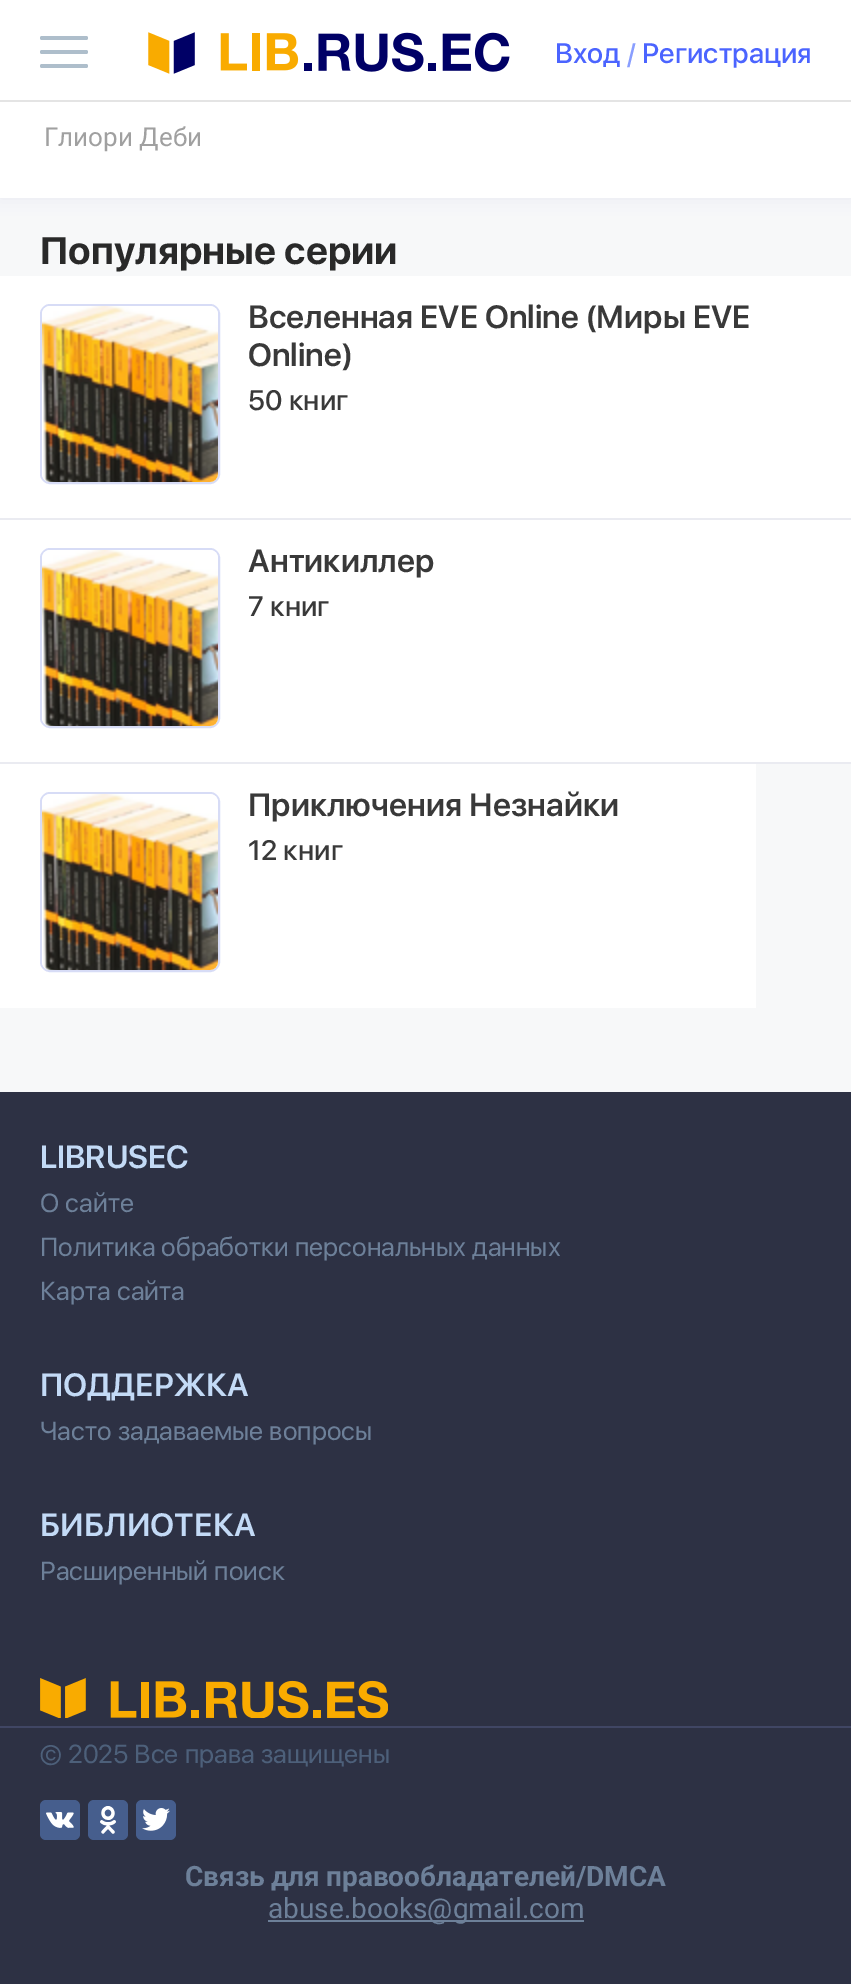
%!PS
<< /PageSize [851 1984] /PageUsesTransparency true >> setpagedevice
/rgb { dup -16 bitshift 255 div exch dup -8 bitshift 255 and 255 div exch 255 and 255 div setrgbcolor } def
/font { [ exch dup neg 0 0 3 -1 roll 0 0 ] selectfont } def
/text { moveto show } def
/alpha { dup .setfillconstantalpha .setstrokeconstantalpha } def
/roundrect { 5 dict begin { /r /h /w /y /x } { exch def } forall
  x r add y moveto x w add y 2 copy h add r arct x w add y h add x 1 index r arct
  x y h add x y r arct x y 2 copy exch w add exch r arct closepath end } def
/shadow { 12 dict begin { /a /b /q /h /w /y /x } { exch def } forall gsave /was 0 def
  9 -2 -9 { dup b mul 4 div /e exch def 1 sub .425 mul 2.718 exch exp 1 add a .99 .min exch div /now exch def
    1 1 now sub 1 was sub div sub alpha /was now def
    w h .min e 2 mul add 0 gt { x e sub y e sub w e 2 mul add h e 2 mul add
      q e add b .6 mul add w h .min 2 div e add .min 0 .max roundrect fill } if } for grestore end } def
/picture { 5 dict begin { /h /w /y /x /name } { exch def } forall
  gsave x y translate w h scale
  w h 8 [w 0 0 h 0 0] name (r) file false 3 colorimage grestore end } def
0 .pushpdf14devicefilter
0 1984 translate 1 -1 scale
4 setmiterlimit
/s1 { /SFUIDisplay-Medium 28 font 16#4B64FF rgb } def
/s2 { /SFUIDisplay-Medium 28 font 16#899EFF rgb } def
/s3 { /Roboto-Regular 26 font 16#A0A0A0 rgb } def
/s4 { /SFUIDisplay-Bold 38 font 16#292929 rgb } def
/s5 { /SFUIDisplay-SemiBold 32 font 16#393939 rgb } def
/s6 { /SFUIDisplay-Medium 28 font 16#393939 rgb } def
/s7 { /SFUIDisplay-SemiBold 32 font 16#C3DAF6 rgb } def
/s8 { /SFUIDisplay-Regular 26 font 16#6D8099 rgb } def
/s9 { /SFUIDisplay-Regular 26 font 16#4D607A rgb } def
/s10 { /Roboto-Regular 28 font 16#6D8099 rgb } def
16#F7F8F9 rgb
0 0 851 1984 rectfill
16#50539C rgb
0 -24 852 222 0 8 0.09 shadow
16#FFFFFF rgb
0 0 851 100 rectfill
16#E4E4E4 rgb
0 100 851 2 rectfill
16#AEBECB rgb
40 36 48 4 2 roundrect fill
40 50 48 4 2 roundrect fill
40 64 48 4 2 roundrect fill
(pic1.raw) 148 32 362 42 picture
s1
(Вход) 555 63 text
s2
(/) 627 63 text
s1
(Регистрация) 642 63 text
16#FFFFFF rgb
0 102 851 96 rectfill
s3
(Глиори Деби) 44 146 text
s4
(Популярные серии) 40 264 text
16#FFFFFF rgb
0 276 851 242 rectfill
16#EAEBF1 rgb
0 518 851 2 rectfill
16#D7DCF6 rgb
2 setlinewidth
41 305 178 178 9 roundrect stroke
(pic2.raw) 42 306 176 176 picture
s5
(Вселенная EVE Online \(Миры EVE) 248 328 text
(Online\)) 248 366 text
s6
(50 книг) 248 410 text
16#FFFFFF rgb
0 520 851 242 rectfill
16#EAEBF1 rgb
0 762 851 2 rectfill
16#D7DCF6 rgb
41 549 178 178 9 roundrect stroke
(pic2.raw) 42 550 176 176 picture
s5
(Антикиллер) 248 572 text
s6
(7 книг) 248 616 text
16#FFFFFF rgb
0 764 756 244 rectfill
16#D7DCF6 rgb
41 793 178 178 9 roundrect stroke
(pic3.raw) 42 794 176 176 picture
s5
(Приключения Незнайки) 248 816 text
s6
(12 книг) 248 860 text
16#2D3144 rgb
0 1092 851 892 rectfill
s7
(LIBRUSEC) 40 1168 text
s8
(О сайте) 40 1212 text
(Политика обработки персональных данных) 40 1256 text
(Карта сайта) 40 1300 text
s7
(ПОДДЕРЖКА) 40 1396 text
s8
(Часто задаваемые вопросы) 40 1440 text
s7
(БИБЛИОТЕКА) 40 1536 text
s8
(Расширенный поиск) 40 1580 text
(pic4.raw) 40 1678 348 40 picture
s9
(© 2025 Все права защищены) 40 1763 text
16#465E8D rgb
40 1800 40 40 6 roundrect fill
(pic5.raw) 46 1812 28 16 picture
88 1800 40 40 6 roundrect fill
(pic6.raw) 100 1806 16 28 picture
136 1800 40 40 6 roundrect fill
(pic7.raw) 142 1808 28 23 picture
16#404664 rgb
0 1726 851 2 rectfill
/Roboto-Bold 28 font
16#6D8099 rgb
185 1886 moveto -1 0 32 (Cвязь для правообладателей/DMCA) widthshow
268 1920 316 2 rectfill
s10
(abuse.books@gmail.com) 268 1918 text
.poppdf14devicefilter showpage
